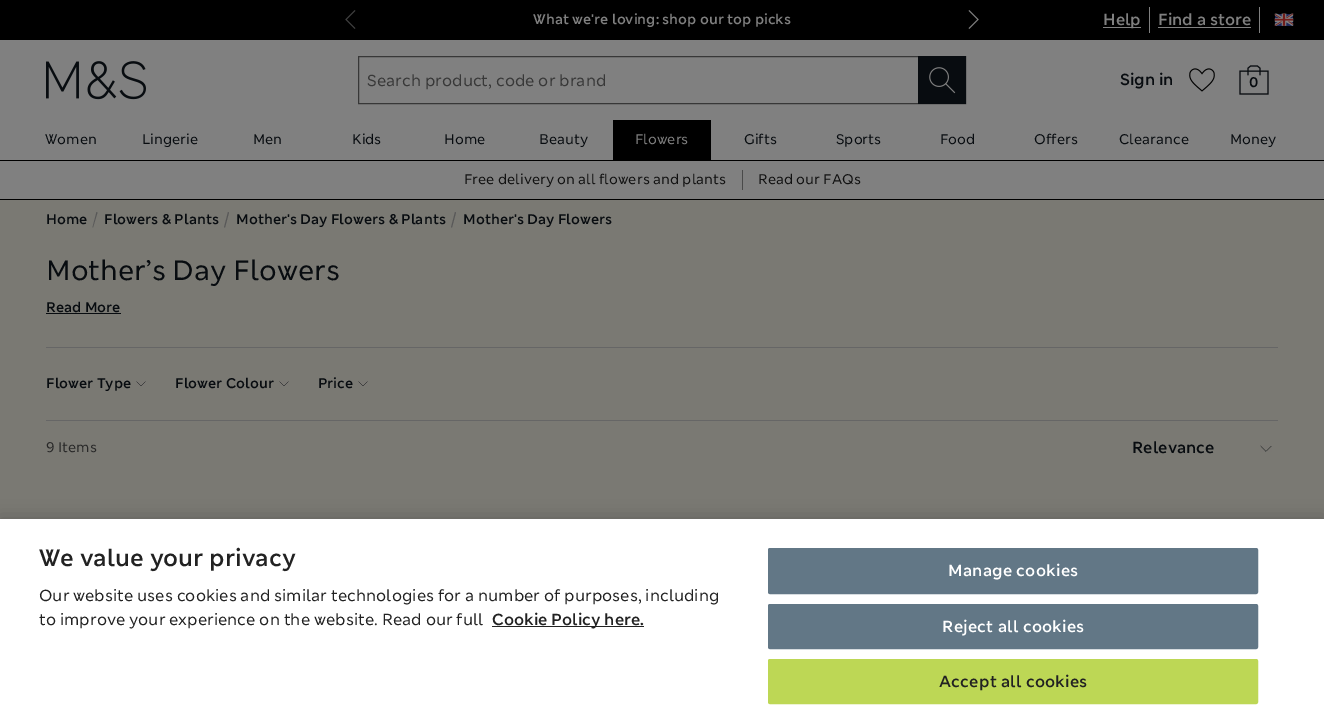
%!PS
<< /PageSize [1324 724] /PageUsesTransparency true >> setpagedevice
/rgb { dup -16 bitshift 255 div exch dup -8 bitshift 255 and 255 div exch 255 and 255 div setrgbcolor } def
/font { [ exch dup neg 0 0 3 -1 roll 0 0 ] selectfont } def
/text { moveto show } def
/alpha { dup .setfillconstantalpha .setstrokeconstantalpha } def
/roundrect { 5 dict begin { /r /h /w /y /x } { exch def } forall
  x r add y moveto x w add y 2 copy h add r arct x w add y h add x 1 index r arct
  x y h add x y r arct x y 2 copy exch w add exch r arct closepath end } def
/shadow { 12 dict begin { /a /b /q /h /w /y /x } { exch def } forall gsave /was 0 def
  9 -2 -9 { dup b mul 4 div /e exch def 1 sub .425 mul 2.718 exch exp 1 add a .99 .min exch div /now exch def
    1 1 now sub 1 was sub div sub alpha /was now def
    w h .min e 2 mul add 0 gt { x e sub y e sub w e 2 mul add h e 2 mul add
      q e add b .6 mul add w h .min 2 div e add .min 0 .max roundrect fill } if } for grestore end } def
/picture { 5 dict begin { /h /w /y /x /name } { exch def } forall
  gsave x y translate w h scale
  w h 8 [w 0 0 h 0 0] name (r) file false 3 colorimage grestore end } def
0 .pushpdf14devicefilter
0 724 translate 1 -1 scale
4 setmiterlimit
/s1 { /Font-SemiBold 14 font 16#808080 rgb } def
/s2 { /Font-SemiBold 16 font 16#808080 rgb } def
/s3 { /Font-Regular 16 font 16#383838 rgb } def
/s4 { /Font-SemiBold 16 font 16#080C10 rgb } def
/s5 { /Font-SemiBold 14 font 16#080C10 rgb } def
/s6 { /Font-Regular 14 font 16#080C10 rgb } def
/s7 { /Font-Regular 14 font 16#808080 rgb } def
/s8 { /Font-Regular 14 font 16#111111 rgb } def
/s9 { /Font-Regular 28 font 16#080C10 rgb } def
/s10 { /Font-Regular 14 font 16#282828 rgb } def
/s11 { /Font-SemiBold 23.6 font 16#222222 rgb } def
/s12 { /Font-Regular 16 font 16#222222 rgb } def
/s13 { /Font-SemiBold 16 font 16#222222 rgb } def
16#808080 rgb
0 0 1324 724 rectfill
16#000000 rgb
0 0 1324 40 rectfill
16#404040 rgb
355 10.5 moveto 346 19.5 lineto 355 28.5 lineto stroke
16#808080 rgb
969 10.5 moveto 978 19.5 lineto 969 28.5 lineto stroke
s1
(What we're loving: shop our top picks) 533 24 text
1149 7 1 26 rectfill
1103 27 38 1 rectfill
s2
(Help) 1103 25 text
1259 7 1 26 rectfill
(Find a store) 1158 25 text
1158 27 93 1 rectfill
(pic1.raw) 1274 13 20 13 picture
16#000000 rgb
0 160 1324 1 rectfill
(pic2.raw) 46 61 100 39 picture
16#373737 rgb
358.5 56.5 607 47 rectstroke
s3
(Search product, code or brand) 367 86 text
16#080C10 rgb
918 56 48 48 rectfill
(pic3.raw) 929 67 27 27 picture
s4
(Sign in) 1120 85 text
(pic4.raw) 1189 68 26 24 picture
(pic5.raw) 1239 65 30 30 picture
s5
(0) 1249 87 text
s6
(Women) 45 144 text
(Lingerie) 142 144 text
(Men) 253 144 text
(Kids) 352 144 text
(Home) 444 144 text
(Beauty) 539 144 text
16#000000 rgb
613 120 98 40 rectfill
s7
(Flowers) 635 144 text
s6
(Gifts) 744 144 text
(Sports) 836 144 text
(Food) 940 144 text
(Offers) 1034 144 text
(Clearance) 1119 144 text
(Money) 1230 144 text
16#000000 rgb
0 199 1324 1 rectfill
s8
(Free delivery on all flowers and plants) 464 184 text
16#4A4A4A rgb
742 170 1 20 rectfill
s8
(Read our FAQs) 758 184 text
16#7A7973 rgb
0 200 1324 319 rectfill
s5
(Home) 46 224 text
16#585858 rgb
96.5 212 moveto 97.5 212.5 lineto 93 227.5 lineto 92.5 227.5 lineto closepath fill
s5
(Flowers & Plants) 104 224 text
16#585858 rgb
228 212 moveto 229 212.5 lineto 225 227.5 lineto 224 227.5 lineto closepath fill
s5
(Mother's Day Flowers & Plants) 236 224 text
16#585858 rgb
455 212 moveto 456 212.5 lineto 452 227.5 lineto 451 227.5 lineto closepath fill
s5
(Mother's Day Flowers) 463 224 text
s9
(Mother’s Day Flowers) 46 280 text
s5
(Read More) 46 312 text
46 313 75 1 rectfill
16#666666 rgb
46 347 1232 1 rectfill
46 420 1232 1 rectfill
s5
(Flower Type) 46 388 text
(pic6.raw) 136 381 10 5 picture
(Flower Colour) 175 388 text
(pic6.raw) 279 381 10 5 picture
(Price) 318 388 text
(pic6.raw) 358 381 10 5 picture
s10
(9 Items) 46 452 text
s4
(Relevance) 1132 453 text
(pic7.raw) 1260 445 12 7 picture
16#000000 rgb
0 519 1324 205 0 9 0.2 shadow
16#FFFFFF rgb
0 519 1324 205 rectfill
s11
(We value your privacy) 39 566 text
s12
(Our website uses cookies and similar technologies for a number of purposes, including) 39 601 text
(to improve your experience on the website. Read our full) 39 625 text
492 626 152 1 rectfill
s13
(Cookie Policy here.) 492 625 text
16#627786 rgb
768.5 548.5 489 45 1.5 roundrect gsave fill grestore
stroke
16#FFFFFF rgb
948 576 moveto 0.2 0 (Manage cookies) ashow
16#627786 rgb
768.5 604.5 489 44 1.5 roundrect gsave fill grestore
stroke
16#FFFFFF rgb
942 632 moveto 0.2 0 (Reject all cookies) ashow
16#BDD755 rgb
768.5 659.5 489 44 1.5 roundrect gsave fill grestore
stroke
16#222222 rgb
939 687 moveto 0.2 0 (Accept all cookies) ashow
.poppdf14devicefilter showpage
